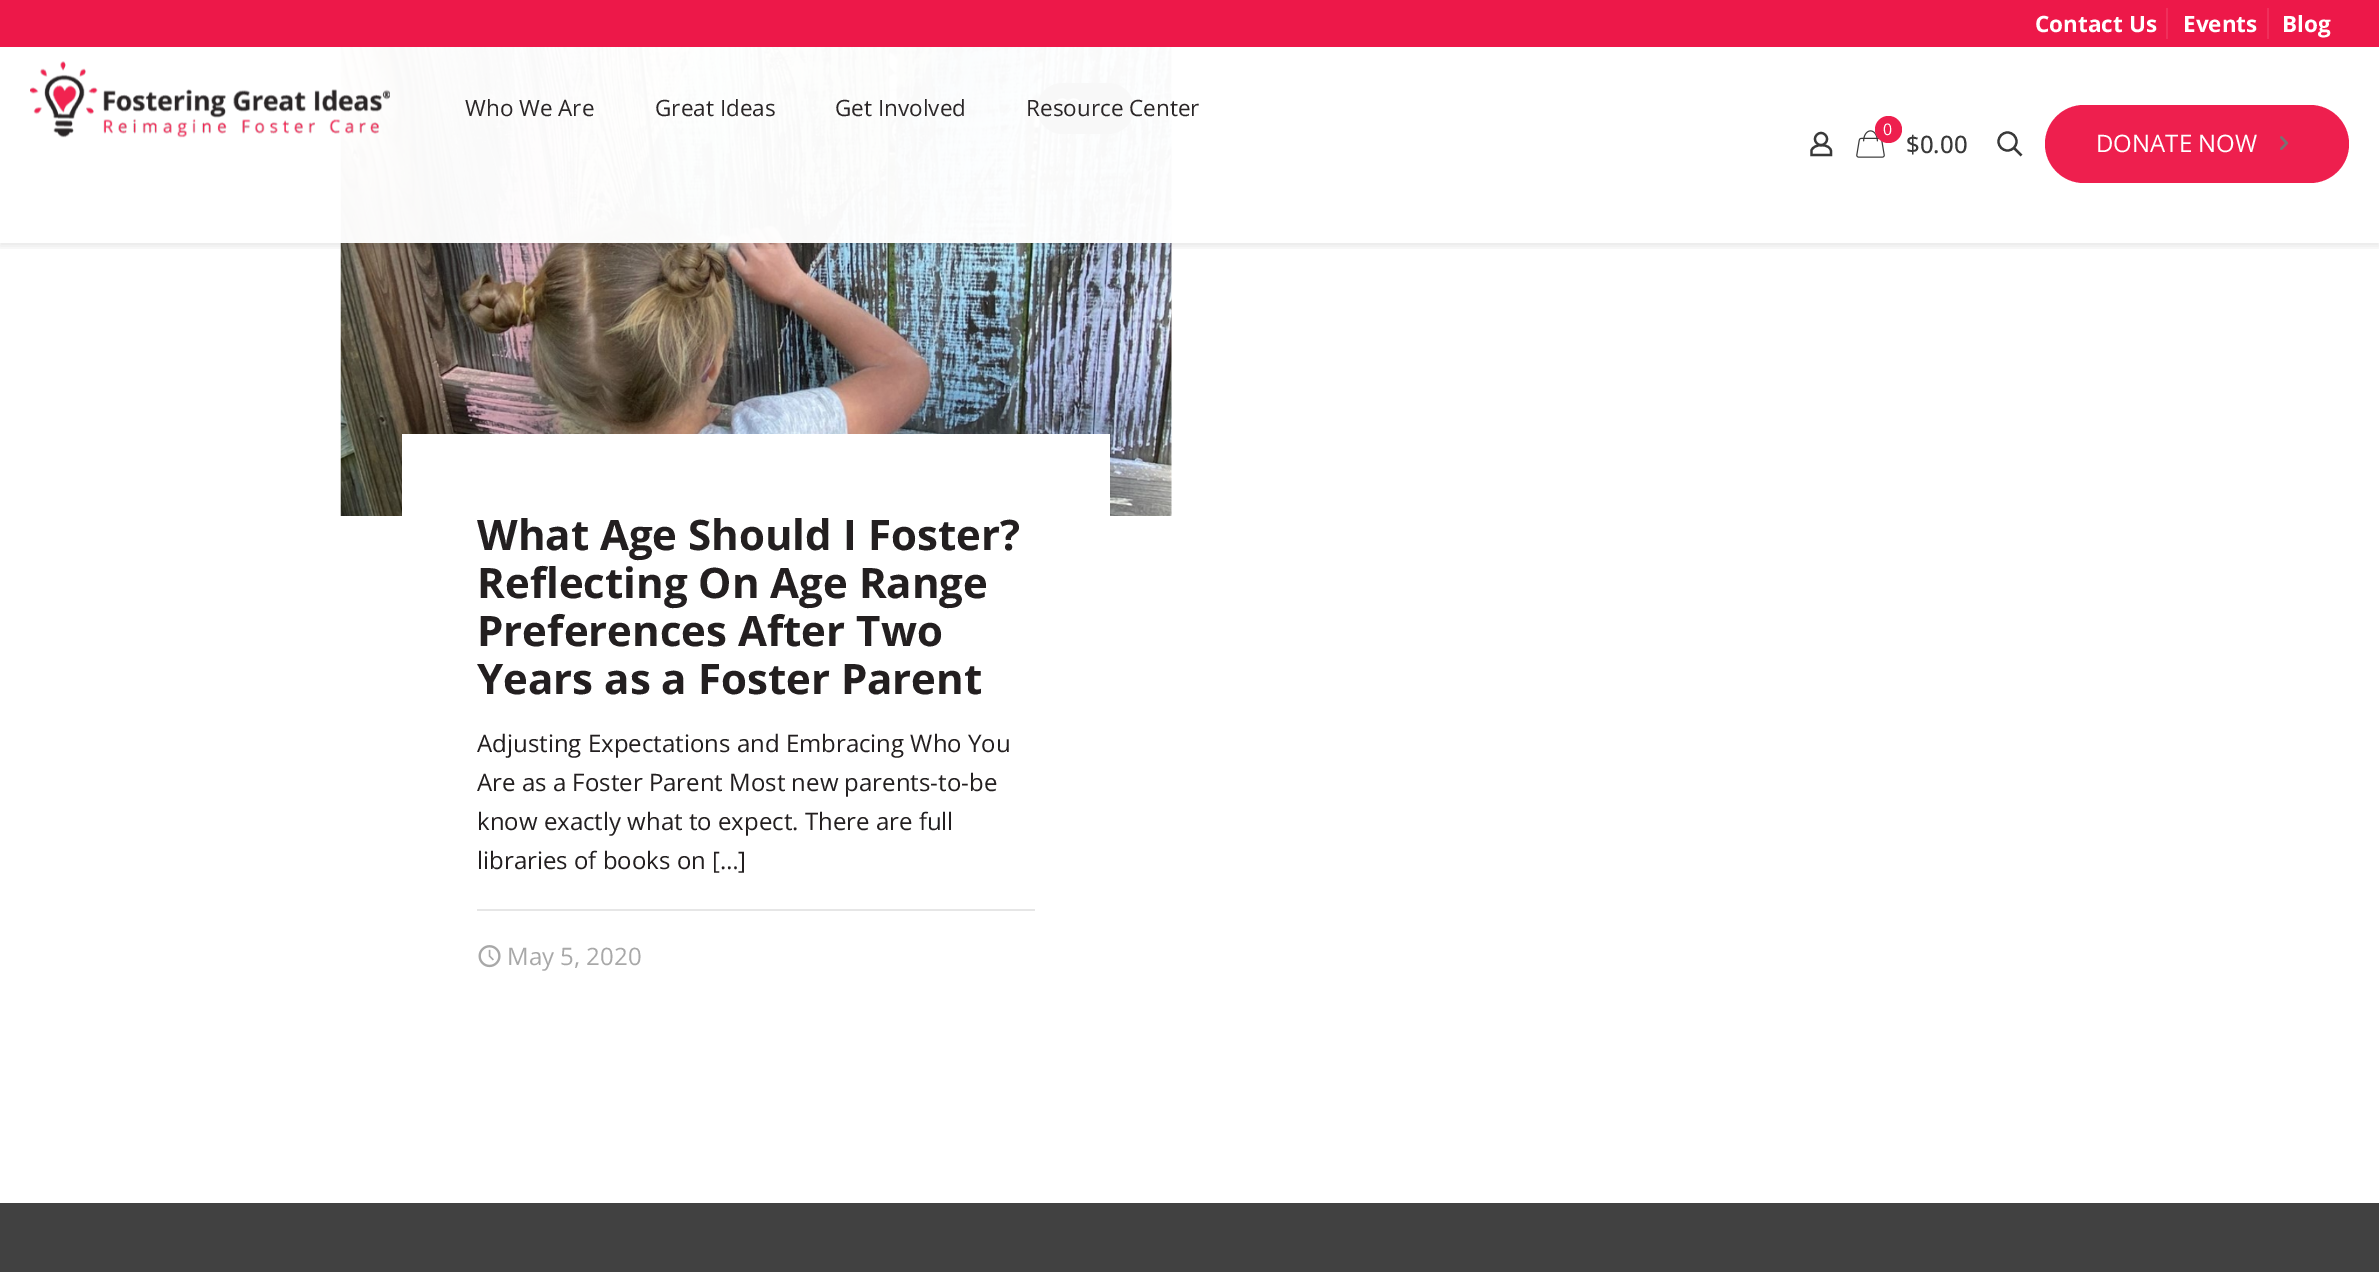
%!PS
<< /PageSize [2379 1272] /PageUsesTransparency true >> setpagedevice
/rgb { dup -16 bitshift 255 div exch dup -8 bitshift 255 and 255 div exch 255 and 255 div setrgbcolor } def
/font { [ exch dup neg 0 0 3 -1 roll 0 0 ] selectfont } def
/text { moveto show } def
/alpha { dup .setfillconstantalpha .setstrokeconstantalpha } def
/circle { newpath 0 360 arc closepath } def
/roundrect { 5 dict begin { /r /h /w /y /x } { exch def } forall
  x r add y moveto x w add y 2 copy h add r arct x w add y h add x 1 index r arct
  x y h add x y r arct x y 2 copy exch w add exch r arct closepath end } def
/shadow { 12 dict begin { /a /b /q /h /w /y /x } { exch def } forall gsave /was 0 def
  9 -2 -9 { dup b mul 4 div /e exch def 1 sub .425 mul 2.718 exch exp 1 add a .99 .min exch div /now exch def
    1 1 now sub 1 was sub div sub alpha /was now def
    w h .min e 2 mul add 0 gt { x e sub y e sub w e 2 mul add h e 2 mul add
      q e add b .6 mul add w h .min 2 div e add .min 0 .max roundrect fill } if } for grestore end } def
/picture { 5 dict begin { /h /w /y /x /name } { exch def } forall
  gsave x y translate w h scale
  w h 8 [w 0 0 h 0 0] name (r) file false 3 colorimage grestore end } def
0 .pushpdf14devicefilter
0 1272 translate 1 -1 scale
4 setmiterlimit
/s1 { /OpenSans-Bold 22.5 font 16#FFFFFF rgb } def
/s2 { /OpenSans-Regular 22.5 font 16#2A2627 rgb } def
/s3 { /OpenSans-Regular 16 font 16#FFFFFF rgb } def
/s4 { /OpenSans-Medium 24 font 16#393939 rgb } def
/s5 { /OpenSans-Regular 24 font 16#FFFFFF rgb } def
/s6 { /OpenSans-Bold 42 font 16#231F20 rgb } def
/s7 { /OpenSans-Regular 24 font 16#231F20 rgb } def
/s8 { /OpenSans-Regular 24 font 16#A8A8A8 rgb } def
16#FFFFFF rgb
0 0 2379 1272 rectfill
16#ED1849 rgb
0 0 2379 47 rectfill
16#EF2F5B rgb
2166 8 2 31 rectfill
s1
(Contact Us) 2035 32 text
16#EF2F5B rgb
2267 8 2 31 rectfill
s1
(Events) 2183 32 text
(Blog) 2282 32 text
(pic4.raw) 340 47 832 469 picture
16#272727 rgb
1037 83 97 51 25.5 roundrect fill
(pic5.raw) 1056 98 24 21 picture
gsave
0 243 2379 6 rectclip
16#000000 rgb
0 50 2379 196 0 4 0.1 shadow
grestore
0.97 alpha
16#FFFFFF rgb
340 47 832 196 rectfill
1 alpha
(pic1.raw) 30 61 360 77 picture
s2
(Who We Are) 465 116 text
(Great Ideas) 655 116 text
(Get Involved) 835 116 text
(Resource Center) 1026 116 text
16#393939 rgb
2.2 setlinewidth
1821 139 6 circle stroke
1831 151.5 moveto 1831 155 lineto 1811.5 155 lineto 1811.5 150.5 lineto 1813.5 143 1831 143.5 1831 151.5 curveto closepath stroke
(pic2.raw) 1856 130 29 28 picture
16#EE1F4E rgb
1888.5 129.5 13.5 circle fill
s3
(0) 1883 135 text
s4
($0.00) 1906 153 text
2007.5 141.5 9 circle stroke
2014 148 moveto 2021.5 155.5 lineto stroke
16#EE1F4E rgb
2045 105 304 78 39 roundrect fill
s5
(DONATE NOW) 2096 152 text
(pic3.raw) 2280 136 9 14 picture
402 434 708 82 rectfill
s6
(What Age Should I Foster?) 477 550 text
(Reflecting On Age Range) 477 598 text
(Preferences After Two) 477 646 text
(Years as a Foster Parent) 477 694 text
s7
(Adjusting Expectations and Embracing Who You) 477 752 text
(Are as a Foster Parent Most new parents-to-be) 477 791 text
(know exactly what to expect. There are full) 477 830 text
(libraries of books on […]) 477 869 text
16#E6E6E6 rgb
477 909 558 2 rectfill
(pic6.raw) 478 945 23 23 picture
s8
(May 5, 2020) 507 965 text
16#414141 rgb
0 1203 2379 69 rectfill
.poppdf14devicefilter showpage
